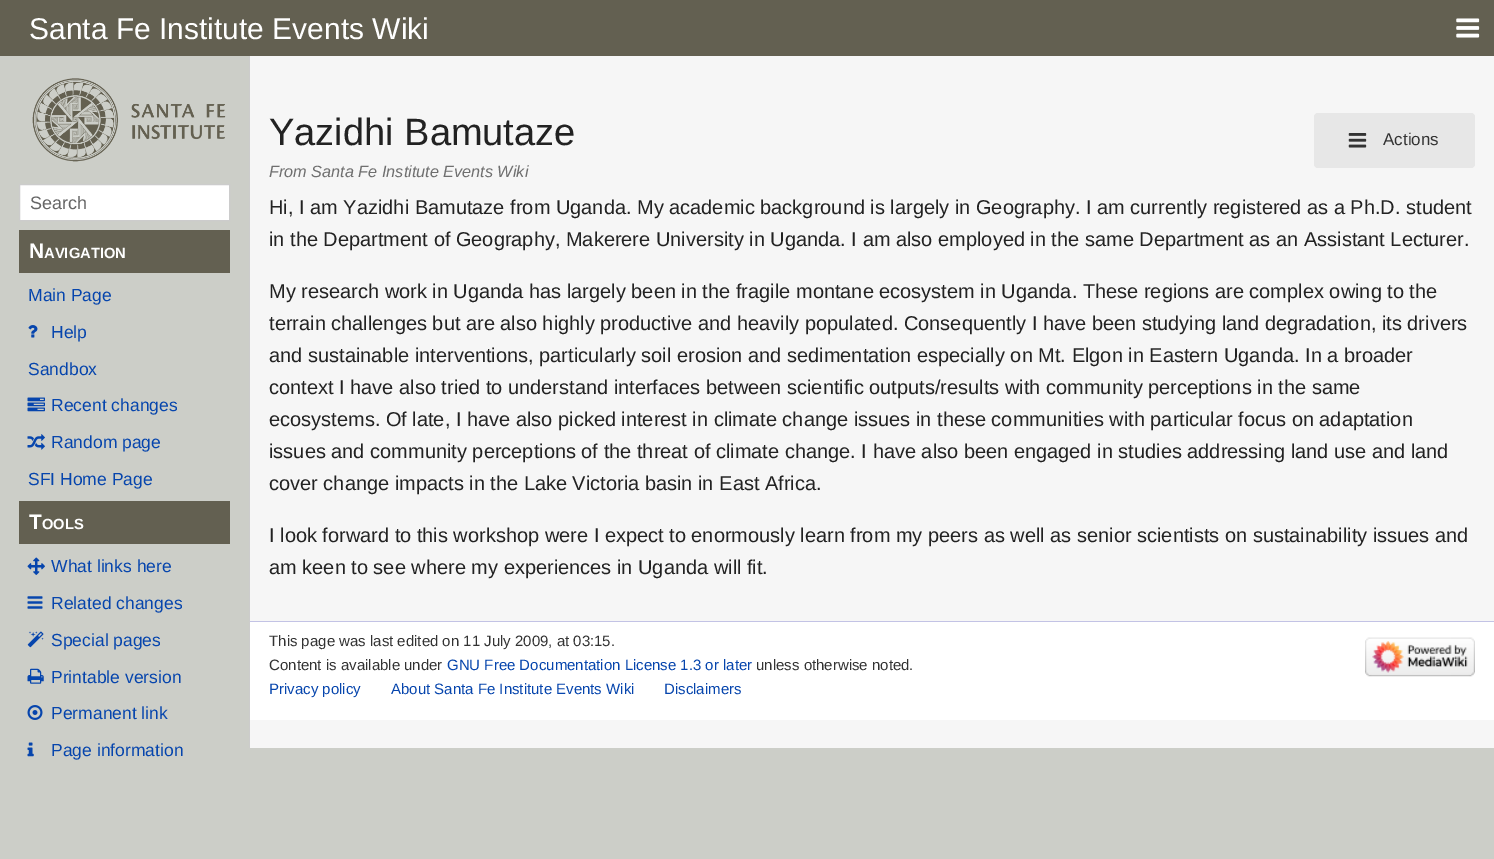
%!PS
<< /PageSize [1494 859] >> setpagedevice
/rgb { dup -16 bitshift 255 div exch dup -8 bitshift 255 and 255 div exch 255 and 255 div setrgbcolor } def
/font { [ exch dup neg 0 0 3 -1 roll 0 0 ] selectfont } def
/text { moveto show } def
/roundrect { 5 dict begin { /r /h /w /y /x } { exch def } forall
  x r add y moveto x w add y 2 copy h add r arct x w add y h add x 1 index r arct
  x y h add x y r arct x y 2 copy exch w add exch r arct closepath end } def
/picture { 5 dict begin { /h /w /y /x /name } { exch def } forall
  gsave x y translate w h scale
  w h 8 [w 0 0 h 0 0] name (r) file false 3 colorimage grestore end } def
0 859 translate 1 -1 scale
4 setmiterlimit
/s1 { /LiberationSans-Regular 30 font 16#FFFFFF rgb } def
/s2 { /LiberationSans-Regular 18 font 16#666666 rgb } def
/s3 { /LiberationSans-Bold 21 font 16#FFFFFF rgb } def
/s4 { /LiberationSans-Bold 14.75 font 16#FFFFFF rgb } def
/s5 { /LiberationSans-Regular 17.5 font 16#0645AD rgb } def
/s6 { /LiberationSans-Regular 38 font 16#222222 rgb } def
/s7 { /LiberationSans-Italic 16.25 font 16#6F6F6F rgb } def
/s8 { /LiberationSans-Regular 20 font 16#222222 rgb } def
/s9 { /LiberationSans-Regular 17 font 16#333333 rgb } def
/s10 { /LiberationSans-Regular 15 font 16#333333 rgb } def
/s11 { /LiberationSans-Regular 15 font 16#0645AD rgb } def
16#CCCEC8 rgb
0 0 1494 859 rectfill
16#636051 rgb
0 0 1494 56 rectfill
s1
(Santa Fe Institute Events Wiki) 29 39 text
(pic1.raw) 1456 18 24 20 picture
(pic2.raw) 32 78 194 84 picture
19.5 184.5 moveto 229.5 184.5 lineto 229.5 220.5 lineto 19.5 220.5 lineto closepath gsave fill grestore
16#CCCCCC rgb
stroke
s2
(Search) 30 209 text
16#636051 rgb
19 230 211 43 rectfill
s3
(N) 29 258 text
s4
(AVIGATION) 44 258 text
s5
(Main Page) 28 301 text
(pic3.raw) 28 325 10 13 picture
(Help) 51 338 text
(Sandbox) 28 375 text
(pic4.raw) 27 397 18 15 picture
(Recent changes) 51 411 text
(pic5.raw) 27 434 18 16 picture
(Random page) 51 448 text
(SFI Home Page) 28 485 text
16#636051 rgb
19 501 211 43 rectfill
s3
(T) 29 529 text
s4
(OOLS) 42 529 text
(pic6.raw) 27 557 18 18 picture
s5
(What links here) 51 572 text
(pic7.raw) 27 596 16 13 picture
(Related changes) 51 609 text
(pic8.raw) 27 631 17 17 picture
(Special pages) 51 646 text
(pic9.raw) 27 668 17 16 picture
(Printable version) 51 683 text
(pic10.raw) 27 705 16 15 picture
(Permanent link) 51 719 text
(pic11.raw) 27 742 7 15 picture
(Page information) 51 756 text
16#F6F6F6 rgb
250 56 1244 692 rectfill
16#CCCCCC rgb
249 56 1 692 rectfill
s6
(Yazidhi Bamutaze) 269 145 text
s7
(From Santa Fe Institute Events Wiki) 269 177 text
s8
(Hi, I am Yazidhi Bamutaze from Uganda. My academic background is largely in Geography. I am currently registered as a Ph.D. student) 269 214 text
(in the Department of Geography, Makerere University in Uganda. I am also employed in the same Department as an Assistant Lecturer.) 269 246 text
(My research work in Uganda has largely been in the fragile montane ecosystem in Uganda. These regions are complex owing to the) 269 298 text
(terrain challenges but are also highly productive and heavily populated. Consequently I have been studying land degradation, its drivers) 269 330 text
(and sustainable interventions, particularly soil erosion and sedimentation especially on Mt. Elgon in Eastern Uganda. In a broader) 269 362 text
(context I have also tried to understand interfaces between scientific outputs/results with community perceptions in the same) 269 394 text
(ecosystems. Of late, I have also picked interest in climate change issues in these communities with particular focus on adaptation) 269 426 text
(issues and community perceptions of the threat of climate change. I have also been engaged in studies addressing land use and land) 269 458 text
(cover change impacts in the Lake Victoria basin in East Africa.) 269 490 text
(I look forward to this workshop were I expect to enormously learn from my peers as well as senior scientists on sustainability issues and) 269 542 text
(am keen to see where my experiences in Uganda will fit.) 269 574 text
16#E7E7E7 rgb
1314 113 161 55 4 roundrect fill
(pic12.raw) 1348 133 19 15 picture
s9
(Actions) 1383 145 text
16#FFFFFF rgb
250 622 1244 98 rectfill
16#C3C3E5 rgb
250 621 1244 1 rectfill
s10
(This page was last edited on 11 July 2009, at 03:15.) 269 646 text
(Content is available under) 269 670 text
s11
(GNU Free Documentation License 1.3 or later) 447 670 text
s10
(unless otherwise noted.) 756 670 text
s11
(Privacy policy) 269 694 text
(About Santa Fe Institute Events Wiki) 391 694 text
(Disclaimers) 664 694 text
(pic13.raw) 1365 637 110 40 picture
showpage
